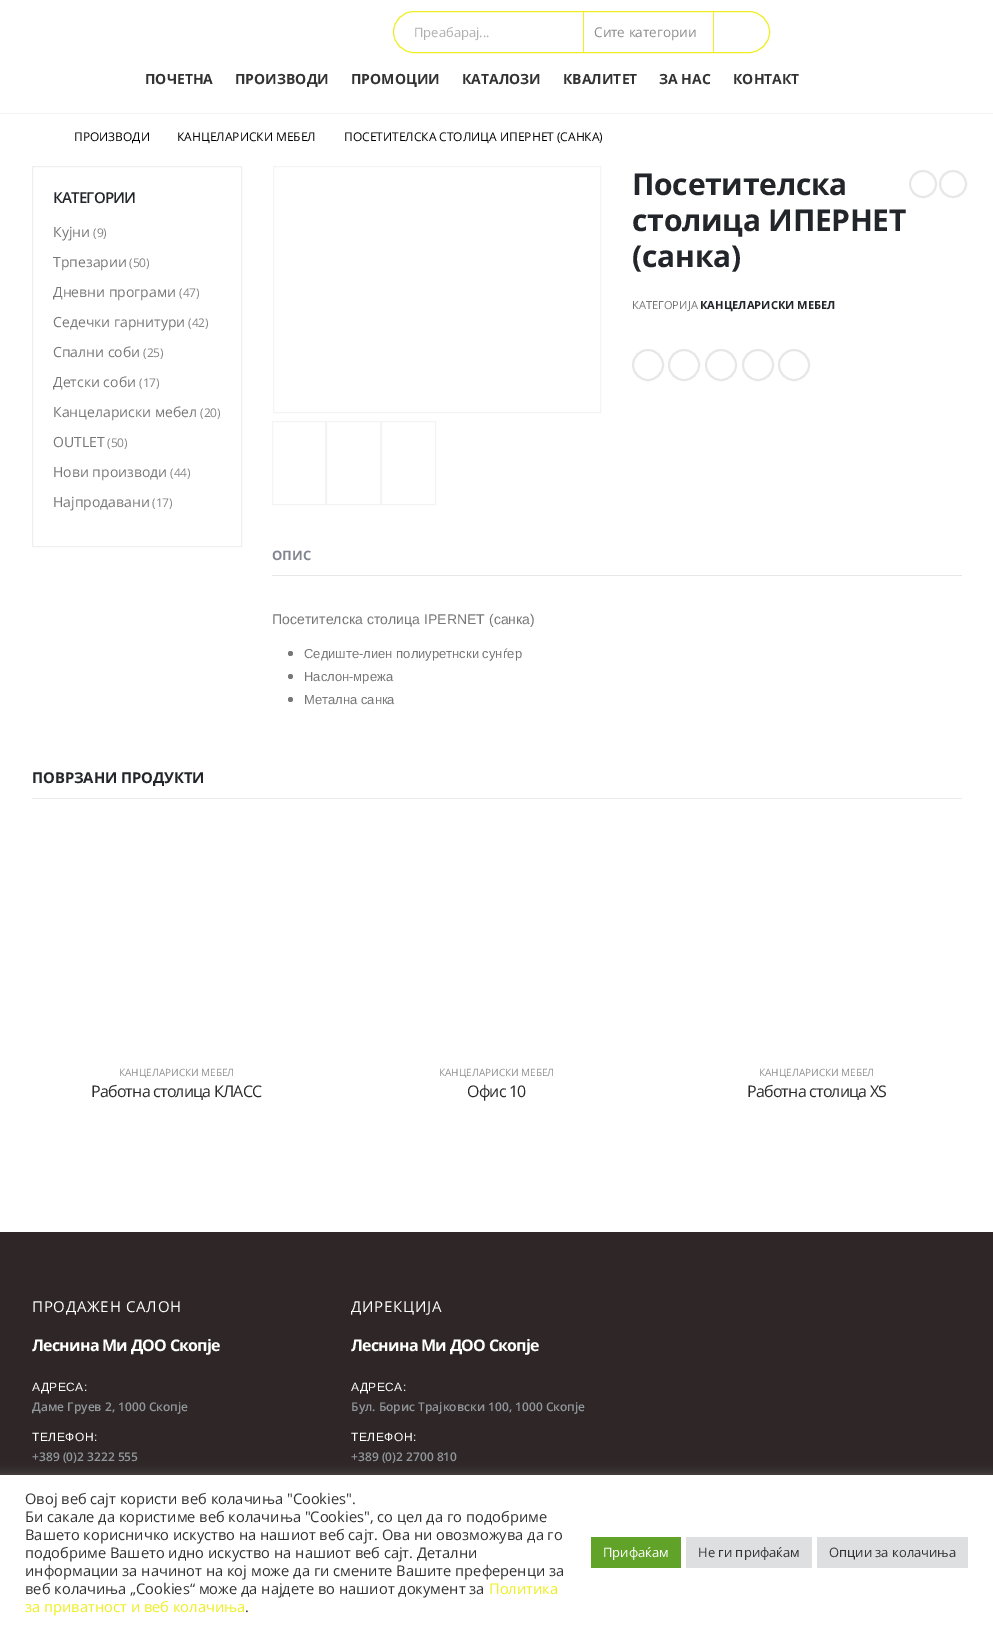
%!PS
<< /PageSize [993 1629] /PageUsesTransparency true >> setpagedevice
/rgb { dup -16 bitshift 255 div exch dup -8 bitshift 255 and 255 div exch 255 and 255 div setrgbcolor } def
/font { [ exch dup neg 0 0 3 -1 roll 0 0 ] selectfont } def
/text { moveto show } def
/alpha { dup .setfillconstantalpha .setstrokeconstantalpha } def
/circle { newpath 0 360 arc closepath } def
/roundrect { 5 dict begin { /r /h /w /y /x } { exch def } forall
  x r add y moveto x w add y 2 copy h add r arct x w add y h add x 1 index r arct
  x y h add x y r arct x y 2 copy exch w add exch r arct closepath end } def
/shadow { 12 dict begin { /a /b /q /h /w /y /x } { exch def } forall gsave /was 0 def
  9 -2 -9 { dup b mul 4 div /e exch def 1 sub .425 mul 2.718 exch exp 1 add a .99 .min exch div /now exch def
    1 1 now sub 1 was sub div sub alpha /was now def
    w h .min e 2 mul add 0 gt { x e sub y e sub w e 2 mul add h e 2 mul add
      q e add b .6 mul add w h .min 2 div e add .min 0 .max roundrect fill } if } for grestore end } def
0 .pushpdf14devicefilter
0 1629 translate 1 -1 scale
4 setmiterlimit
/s1 { /OpenSans-Regular 13 font 16#AFAFAF rgb } def
/s2 { /OpenSans-Regular 13.5 font 16#8D8D8D rgb } def
/s3 { /OpenSans-Bold 14 font 16#333333 rgb } def
/s4 { /OpenSans-Regular 12 font 16#000000 rgb } def
/s5 { /OpenSans-Regular 14 font 16#777777 rgb } def
/s6 { /OpenSans-Regular 12 font 16#848484 rgb } def
/s7 { /OpenSans-Regular 11.1 font 16#777777 rgb } def
/s8 { /OpenSans-Bold 11.1 font 16#222529 rgb } def
/s9 { /OpenSans-Bold 13 font 16#818692 rgb } def
/s10 { /LiberationSans-Regular 13 font 16#777777 rgb } def
/s11 { /OpenSans-Regular 10 font 16#8D8D8D rgb } def
/s12 { /OpenSans-SemiBold 12 font 16#90969A rgb } def
/s13 { /OpenSans-Regular 14.65 font 16#333333 rgb } def
/s14 { /OpenSans-Regular 14.65 font 16#EEEE22 rgb } def
/s15 { /OpenSans-Regular 13 font 16#FFFFFF rgb } def
/s16 { /OpenSans-Regular 13 font 16#333333 rgb } def
16#FFFFFF rgb
0 0 993 1629 rectfill
16#EEEE22 rgb
393.5 11.5 376 41 20.5 roundrect stroke
583 12 1 40 rectfill
s1
(Преабарај...) 414 37 text
16#EEEE22 rgb
713 12 1 40 rectfill
s2
(Сите категории) 594 37 text
s3
(ПОЧЕТНА) 145 84 text
(ПРОИЗВОДИ) 235 84 text
(ПРОМОЦИИ) 351 84 text
(КАТАЛОЗИ) 462 84 text
(КВАЛИТЕТ) 563 84 text
(ЗА НАС) 659 84 text
(КОНТАКТ) 733 84 text
16#F3F3F3 rgb
0 113 993 1 rectfill
s4
(ПРОИЗВОДИ) 74 141 text
(КАНЦЕЛАРИСКИ МЕБЕЛ) 177 141 text
(ПОСЕТИТЕЛСКА СТОЛИЦА ИПЕРНЕТ \(САНКА\)) 344 141 text
16#EFEFEF rgb
32.5 166.5 209 380 rectstroke
/OpenSans-SemiBold 15 font
16#222529 rgb
53 203 moveto -0.75 0 (КАТЕГОРИИ) ashow
s5
(Кујни) 53 237 text
s6
(\(9\)) 93 237 text
s5
(Трпезарии) 53 267 text
s6
(\(50\)) 129 267 text
s5
(Дневни програми) 53 297 text
s6
(\(47\)) 179 297 text
s5
(Седечки гарнитури) 53 327 text
s6
(\(42\)) 188 327 text
s5
(Спални соби) 53 357 text
s6
(\(25\)) 143 357 text
s5
(Детски соби) 53 387 text
s6
(\(17\)) 139 387 text
s5
(Канцелариски мебел) 53 417 text
s6
(\(20\)) 200 417 text
s5
(OUTLET) 53 447 text
s6
(\(50\)) 107 447 text
s5
(Нови производи) 53 477 text
s6
(\(44\)) 170 477 text
s5
(Најпродавани) 53 507 text
s6
(\(17\)) 152 507 text
16#F4F4F4 rgb
273.5 166.5 327 246 rectstroke
272.5 421.5 53 83 rectstroke
326.5 421.5 54 83 rectstroke
381.5 421.5 54 83 rectstroke
/OpenSans-Bold 30 font
16#222529 rgb
632 195 moveto -0.25 0 (Посетителска) ashow
632 231 moveto -0.25 0 (столица ИПЕРНЕТ) ashow
632 267 moveto -0.25 0 (\(санка\)) ashow
16#E7E7E7 rgb
2 setlinewidth
923 184 13 circle stroke
953 184 13 circle stroke
s7
(КАТЕГОРИЈА) 632 309 text
s8
(КАНЦЕЛАРИСКИ МЕБЕЛ) 700 309 text
16#E7E7E7 rgb
648 365 15 circle stroke
684 365 15 circle stroke
721 365 15 circle stroke
758 365 15 circle stroke
794 365 15 circle stroke
s9
(ОПИС) 272 560 text
16#E7E7E7 rgb
272 575 690 1 rectfill
/LiberationSans-Regular 14 font
16#777777 rgb
272 624 moveto 0.05 0 (Посетителска столица IPERNET \(санка\)) ashow
290.5 653.5 2.5 circle fill
s10
(Седиште-лиен полиуретнски сунѓер) 304 658 text
290.5 676.5 2.5 circle fill
(Наслон-мрежа) 304 681 text
290.5 699.5 2.5 circle fill
(Метална санка) 304 704 text
16#EBEBEB rgb
32 798 930 1 rectfill
/OpenSans-Bold 14.9 font
16#222529 rgb
32 783 moveto -0.1 0 (ПОВРЗАНИ ПРОДУКТИ) ashow
s11
(КАНЦЕЛАРИСКИ МЕБЕЛ) 119 1076 text
/OpenSans-Regular 16 font
16#2B2B2D rgb
91 1097 moveto -0.8 0 (Работна столица КЛАСС) ashow
s11
(КАНЦЕЛАРИСКИ МЕБЕЛ) 439 1076 text
/OpenSans-Regular 16 font
16#2B2B2D rgb
467 1097 moveto -0.8 0 (Офис 10) ashow
s11
(КАНЦЕЛАРИСКИ МЕБЕЛ) 759 1076 text
/OpenSans-Regular 16 font
16#2B2B2D rgb
747 1097 moveto -0.8 0 (Работна столица XS) ashow
16#2F2727 rgb
0 1232 993 243 rectfill
/OpenSans-Regular 15 font
16#FFFFFF rgb
32 1312 moveto 0.75 0 (ПРОДАЖЕН САЛОН) ashow
/OpenSans-Bold 16 font
32 1351 moveto -0.75 0 (Леснина Ми ДОО Скопје) ashow
/LiberationSans-Regular 12 font
32 1391 moveto 0.5 0 (АДРЕСА:) ashow
s12
(Даме Груев 2, 1000 Скопје) 32 1411 text
/LiberationSans-Regular 12 font
16#FFFFFF rgb
32 1441 moveto 0.5 0 (ТЕЛЕФОН:) ashow
s12
(+389 \(0\)2 3222 555) 32 1461 text
/OpenSans-Regular 15 font
16#FFFFFF rgb
351 1312 moveto 0.75 0 (ДИРЕКЦИЈА) ashow
/OpenSans-Bold 16 font
351 1351 moveto -0.75 0 (Леснина Ми ДОО Скопје) ashow
/LiberationSans-Regular 12 font
351 1391 moveto 0.5 0 (АДРЕСА:) ashow
s12
(Бул. Борис Трајковски 100, 1000 Скопје) 351 1411 text
/LiberationSans-Regular 12 font
16#FFFFFF rgb
351 1441 moveto 0.5 0 (ТЕЛЕФОН:) ashow
s12
(+389 \(0\)2 2700 810) 351 1461 text
16#ACABAB rgb
0 1474 993 154 0 5 0.3 shadow
16#FFFFFF rgb
0 1475 993 154 rectfill
s13
(Овој веб сајт користи веб колачиња "Cookies".) 25 1504 text
(Би сакале да користиме веб колачиња "Cookies", со цел да го подобриме) 25 1522 text
(Вашето корисничко искуство на нашиот веб сајт. Ова ни овозможува да го) 25 1540 text
(подобриме Вашето идно искуство на нашиот веб сајт. Детални) 25 1558 text
(информации за начинот на кој може да ги смените Вашите преференци за) 25 1576 text
(веб колачиња „Cookies“ може да најдете во нашиот документ за) 25 1594 text
s14
(Политика) 489 1594 text
(за приватност и веб колачиња) 25 1612 text
s13
(.) 245 1612 text
16#61A229 rgb
591 1537 90 31 rectfill
s15
(Прифаќам) 603 1557 text
16#DEDFE0 rgb
686 1537 126 31 rectfill
s16
(Не ги прифаќам) 698 1557 text
16#DEDFE0 rgb
817 1537 151 31 rectfill
s16
(Опции за колачиња) 829 1557 text
.poppdf14devicefilter showpage
